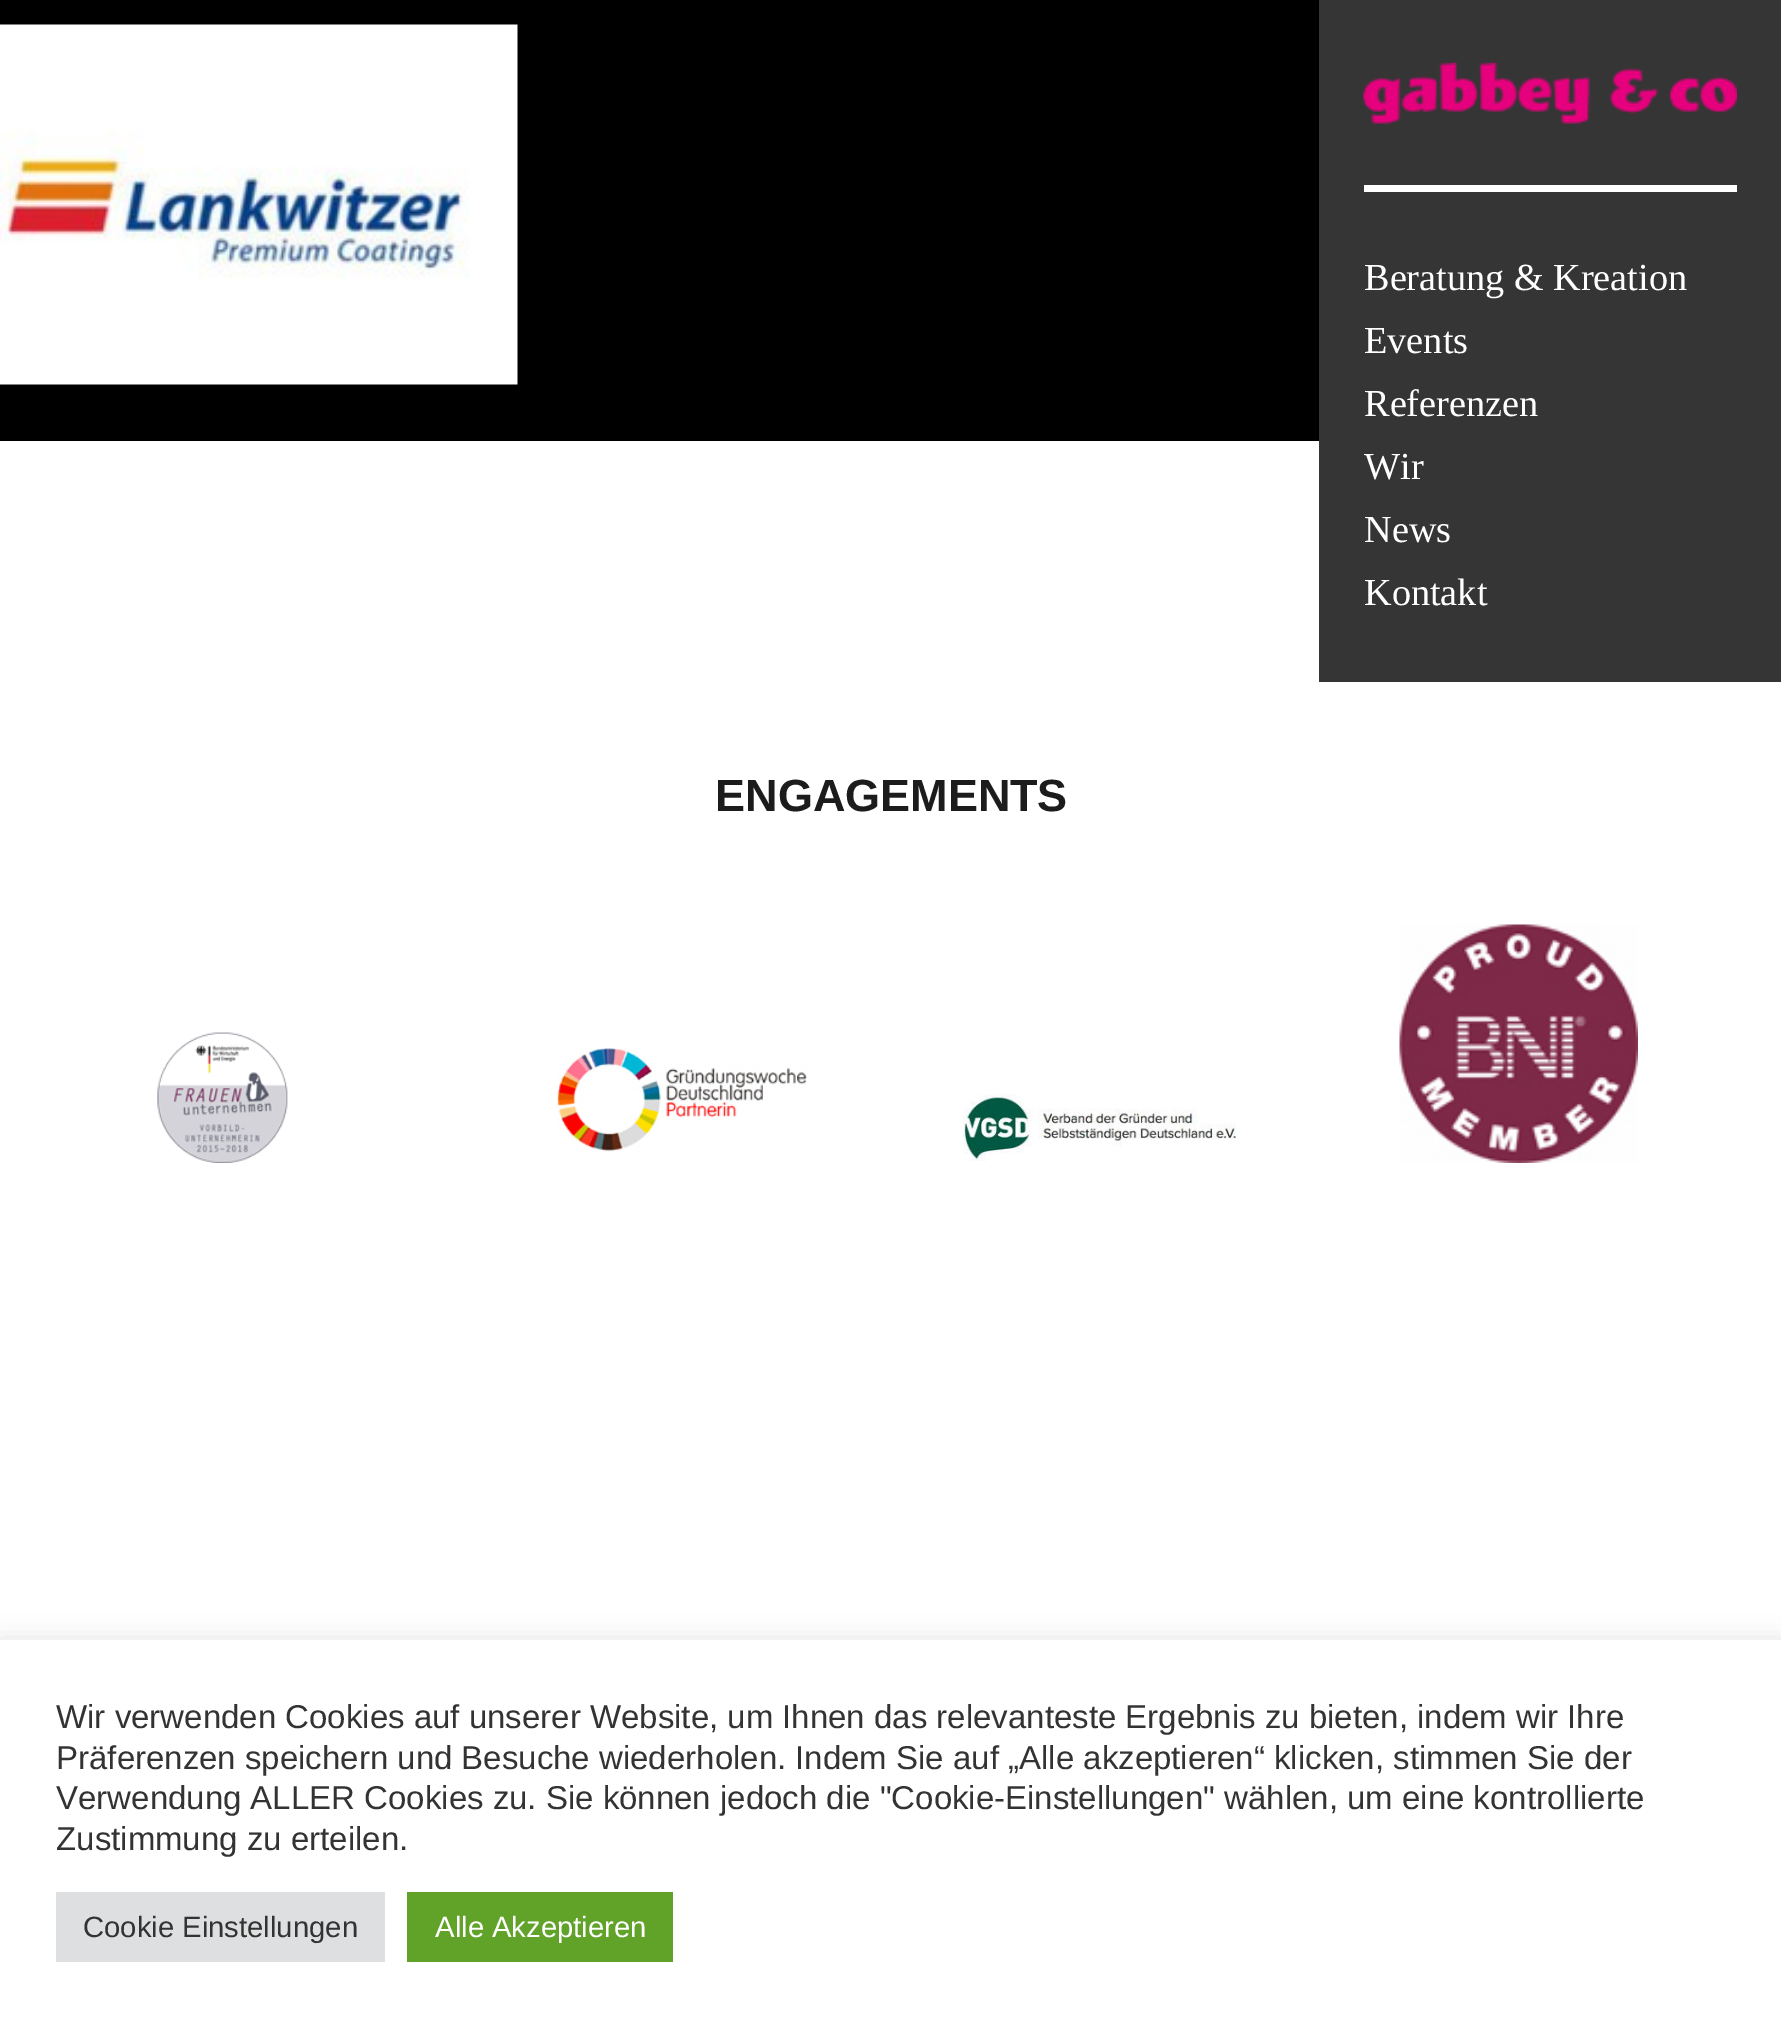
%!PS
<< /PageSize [1781 2029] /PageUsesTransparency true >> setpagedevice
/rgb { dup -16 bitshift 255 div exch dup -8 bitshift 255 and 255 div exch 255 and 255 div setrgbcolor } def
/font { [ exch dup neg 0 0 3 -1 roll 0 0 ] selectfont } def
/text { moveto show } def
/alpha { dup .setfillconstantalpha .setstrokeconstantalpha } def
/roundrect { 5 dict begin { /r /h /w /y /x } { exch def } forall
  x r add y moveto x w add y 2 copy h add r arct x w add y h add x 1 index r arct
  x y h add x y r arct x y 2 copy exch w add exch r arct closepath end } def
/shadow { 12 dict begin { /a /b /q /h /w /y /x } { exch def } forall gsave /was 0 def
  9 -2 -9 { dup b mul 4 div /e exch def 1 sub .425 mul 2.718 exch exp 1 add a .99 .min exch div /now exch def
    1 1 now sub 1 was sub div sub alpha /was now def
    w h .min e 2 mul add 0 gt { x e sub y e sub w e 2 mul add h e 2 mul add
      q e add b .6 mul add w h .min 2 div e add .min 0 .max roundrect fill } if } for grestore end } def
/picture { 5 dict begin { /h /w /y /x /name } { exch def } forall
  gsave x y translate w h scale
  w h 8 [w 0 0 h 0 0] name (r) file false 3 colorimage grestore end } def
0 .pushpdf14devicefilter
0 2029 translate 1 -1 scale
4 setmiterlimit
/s1 { /LiberationSerif-Regular 38.25 font 16#FFFFFF rgb } def
/s2 { /LiberationSans-Bold 45 font 16#1C1C1C rgb } def
/s3 { /LiberationSans-Regular 33 font 16#333333 rgb } def
/s4 { /LiberationSans-Regular 29.25 font 16#333333 rgb } def
/s5 { /LiberationSans-Regular 29.25 font 16#FFFFFF rgb } def
16#000000 rgb
0 0 1781 2029 rectfill
(pic1.raw) 0 24 518 361 picture
16#FFFFFF rgb
0 441 1781 1199 rectfill
16#353535 rgb
1319 0 462 682 rectfill
(pic2.raw) 1363 62 374 62 picture
16#FFFFFF rgb
1364 185 373 7 rectfill
s1
(Beratung & Kreation) 1364 290 text
(Events) 1364 353 text
(Referenzen) 1364 416 text
(Wir) 1364 479 text
(News) 1364 542 text
(Kontakt) 1364 605 text
s2
(ENGAGEMENTS) 715 811 text
(pic3.raw) 157 1032 131 131 picture
(pic4.raw) 557 1047 250 105 picture
(pic5.raw) 963 1094 273 67 picture
(pic6.raw) 1399 924 239 239 picture
16#ACABAB rgb
0 1638 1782 389 0 11 0.3 shadow
16#FFFFFF rgb
0 1640 1781 389 rectfill
s3
(Wir verwenden Cookies auf unserer Website, um Ihnen das relevanteste Ergebnis zu bieten, indem wir Ihre) 56 1728 text
(Präferenzen speichern und Besuche wiederholen. Indem Sie auf „Alle akzeptieren“ klicken, stimmen Sie der) 56 1769 text
(Verwendung ALLER Cookies zu. Sie können jedoch die "Cookie-Einstellungen" wählen, um eine kontrollierte) 56 1809 text
(Zustimmung zu erteilen.) 56 1850 text
16#DEDFE0 rgb
56 1892 329 70 rectfill
s4
(Cookie Einstellungen) 83 1937 text
16#61A229 rgb
407 1892 266 70 rectfill
s5
(Alle Akzeptieren) 435 1937 text
.poppdf14devicefilter showpage
